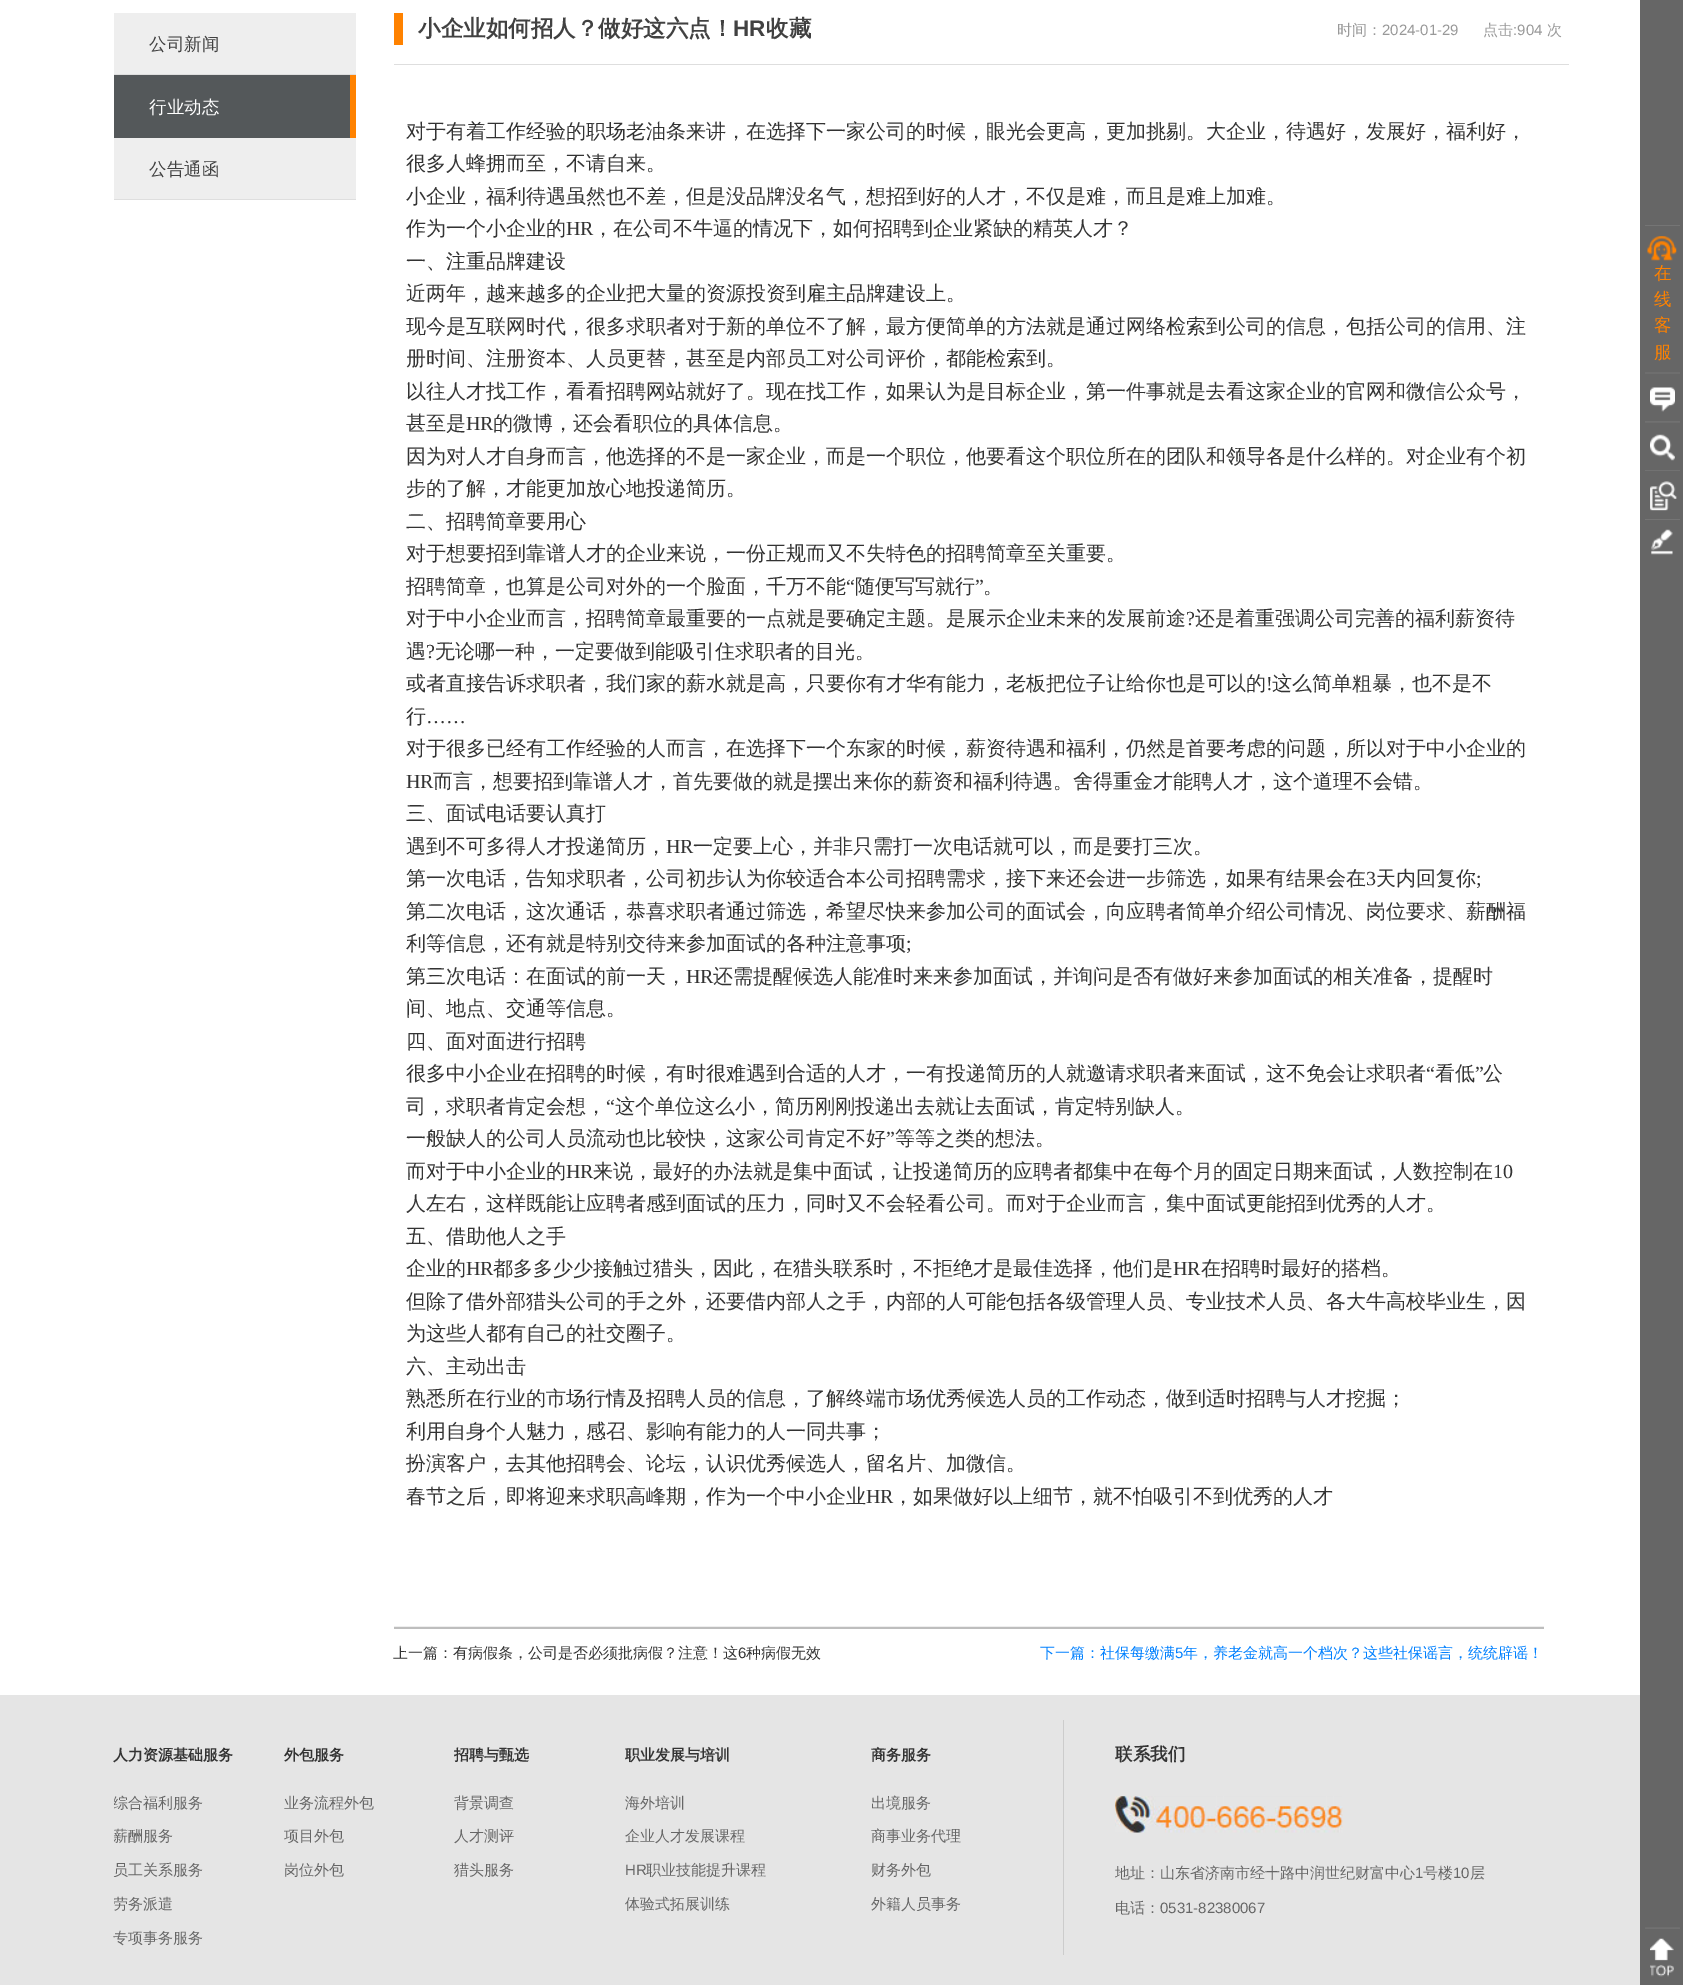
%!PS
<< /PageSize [1683 1985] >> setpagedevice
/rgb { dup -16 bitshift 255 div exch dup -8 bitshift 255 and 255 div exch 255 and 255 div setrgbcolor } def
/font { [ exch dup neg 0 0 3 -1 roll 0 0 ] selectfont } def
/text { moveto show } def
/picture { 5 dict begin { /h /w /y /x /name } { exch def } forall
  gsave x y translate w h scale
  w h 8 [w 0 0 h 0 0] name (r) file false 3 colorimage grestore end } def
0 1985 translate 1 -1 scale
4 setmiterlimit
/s1 { /WenQuanYiZenHei-Medium 17.5 font 16#414141 rgb } def
/s2 { /WenQuanYiZenHei-Medium 17.5 font 16#FFFFFF rgb } def
/s3 { /WenQuanYiZenHei-Bold 22.5 font 16#414141 rgb } def
/s4 { /LiberationSans-Bold 22.5 font 16#414141 rgb } def
/s5 { /WenQuanYiZenHei-Medium 15 font 16#999999 rgb } def
/s6 { /LiberationSans-Regular 15 font 16#999999 rgb } def
/s7 { /WenQuanYiZenHei-Medium 20 font 16#333333 rgb } def
/s8 { /LiberationSerif-Regular 20 font 16#333333 rgb } def
/s9 { /WenQuanYiZenHei-Medium 15 font 16#333333 rgb } def
/s10 { /LiberationSans-Regular 15 font 16#333333 rgb } def
/s11 { /WenQuanYiZenHei-Medium 15 font 16#0080FF rgb } def
/s12 { /LiberationSans-Regular 15 font 16#0080FF rgb } def
/s13 { /WenQuanYiZenHei-Medium 17.5 font 16#FF8200 rgb } def
/s14 { /WenQuanYiZenHei-Bold 15 font 16#333333 rgb } def
/s15 { /WenQuanYiZenHei-Medium 15 font 16#666666 rgb } def
/s16 { /LiberationSans-Regular 15 font 16#666666 rgb } def
/s17 { /WenQuanYiZenHei-Bold 17.5 font 16#333333 rgb } def
16#FFFFFF rgb
0 0 1683 1985 rectfill
16#EEEEEE rgb
114 13 242 186 rectfill
16#DEDEDE rgb
114 74 242 1 rectfill
s1
(公司新闻) 149 50 text
16#54585A rgb
114 75 236 63 rectfill
16#FF8200 rgb
350 75 6 63 rectfill
s2
(行业动态) 149 113 text
16#DEDEDE rgb
114 199 242 1 rectfill
s1
(公告通函) 149 175 text
16#DEDEDE rgb
394 64 1175 1 rectfill
16#FF8200 rgb
394 13 9 32 rectfill
s3
(小企业如何招人？做好这六点！) 418 36 text
s4
(HR) 733 36 text
s3
(收藏) 766 36 text
s5
(时间：) 1337 35 text
s6
(2024-01-29) 1382 35 text
s5
(点击) 1483 35 text
s6
(:904) 1513 35 text
s5
(次) 1547 35 text
s7
(对于有着工作经验的职场老油条来讲，在选择下一家公司的时候，眼光会更高，更加挑剔。大企业，待遇好，发展好，福利好，) 406 138 text
(很多人蜂拥而至，不请自来。) 406 170 text
(小企业，福利待遇虽然也不差，但是没品牌没名气，想招到好的人才，不仅是难，而且是难上加难。) 406 203 text
(作为一个小企业的) 406 235 text
s8
(HR) 566 235 text
s7
(，在公司不牛逼的情况下，如何招聘到企业紧缺的精英人才？) 593 235 text
(一、注重品牌建设) 406 268 text
(近两年，越来越多的企业把大量的资源投资到雇主品牌建设上。) 406 300 text
(现今是互联网时代，很多求职者对于新的单位不了解，最方便简单的方法就是通过网络检索到公司的信息，包括公司的信用、注) 406 333 text
(册时间、注册资本、人员更替，甚至是内部员工对公司评价，都能检索到。) 406 365 text
(以往人才找工作，看看招聘网站就好了。现在找工作，如果认为是目标企业，第一件事就是去看这家企业的官网和微信公众号，) 406 398 text
(甚至是) 406 430 text
s8
(HR) 466 430 text
s7
(的微博，还会看职位的具体信息。) 493 430 text
(因为对人才自身而言，他选择的不是一家企业，而是一个职位，他要看这个职位所在的团队和领导各是什么样的。对企业有个初) 406 463 text
(步的了解，才能更加放心地投递简历。) 406 495 text
(二、招聘简章要用心) 406 528 text
(对于想要招到靠谱人才的企业来说，一份正规而又不失特色的招聘简章至关重要。) 406 560 text
(招聘简章，也算是公司对外的一个脸面，千万不能) 406 593 text
s8
(“) 846 593 text
s7
(随便写写就行) 855 593 text
s8
(”) 975 593 text
s7
(。) 983 593 text
(对于中小企业而言，招聘简章最重要的一点就是要确定主题。是展示企业未来的发展前途) 406 625 text
s8
(?) 1186 625 text
s7
(还是着重强调公司完善的福利薪资待) 1195 625 text
(遇) 406 658 text
s8
(?) 426 658 text
s7
(无论哪一种，一定要做到能吸引住求职者的目光。) 435 658 text
(或者直接告诉求职者，我们家的薪水就是高，只要你有才华有能力，老板把位子让给你也是可以的) 406 690 text
s8
(!) 1266 690 text
s7
(这么简单粗暴，也不是不) 1272 690 text
(行) 406 723 text
s8
(……) 426 723 text
s7
(对于很多已经有工作经验的人而言，在选择下一个东家的时候，薪资待遇和福利，仍然是首要考虑的问题，所以对于中小企业的) 406 755 text
s8
(HR) 406 788 text
s7
(而言，想要招到靠谱人才，首先要做的就是摆出来你的薪资和福利待遇。舍得重金才能聘人才，这个道理不会错。) 433 788 text
(三、面试电话要认真打) 406 820 text
(遇到不可多得人才投递简历，) 406 853 text
s8
(HR) 666 853 text
s7
(一定要上心，并非只需打一次电话就可以，而是要打三次。) 693 853 text
(第一次电话，告知求职者，公司初步认为你较适合本公司招聘需求，接下来还会进一步筛选，如果有结果会在) 406 885 text
s8
(3) 1366 885 text
s7
(天内回复你) 1376 885 text
s8
(;) 1476 885 text
s7
(第二次电话，这次通话，恭喜求职者通过筛选，希望尽快来参加公司的面试会，向应聘者简单介绍公司情况、岗位要求、薪酬福) 406 918 text
(利等信息，还有就是特别交待来参加面试的各种注意事项) 406 950 text
s8
(;) 906 950 text
s7
(第三次电话：在面试的前一天，) 406 983 text
s8
(HR) 686 983 text
s7
(还需提醒候选人能准时来来参加面试，并询问是否有做好来参加面试的相关准备，提醒时) 713 983 text
(间、地点、交通等信息。) 406 1015 text
(四、面对面进行招聘) 406 1048 text
(很多中小企业在招聘的时候，有时很难遇到合适的人才，一有投递简历的人就邀请求职者来面试，这不免会让求职者) 406 1080 text
s8
(“) 1426 1080 text
s7
(看低) 1435 1080 text
s8
(”) 1475 1080 text
s7
(公) 1483 1080 text
(司，求职者肯定会想，) 406 1113 text
s8
(“) 606 1113 text
s7
(这个单位这么小，简历刚刚投递出去就让去面试，肯定特别缺人。) 615 1113 text
(一般缺人的公司人员流动也比较快，这家公司肯定不好) 406 1145 text
s8
(”) 886 1145 text
s7
(等等之类的想法。) 895 1145 text
(而对于中小企业的) 406 1178 text
s8
(HR) 566 1178 text
s7
(来说，最好的办法就是集中面试，让投递简历的应聘者都集中在每个月的固定日期来面试，人数控制在) 593 1178 text
s8
(10) 1493 1178 text
s7
(人左右，这样既能让应聘者感到面试的压力，同时又不会轻看公司。而对于企业而言，集中面试更能招到优秀的人才。) 406 1210 text
(五、借助他人之手) 406 1243 text
(企业的) 406 1275 text
s8
(HR) 466 1275 text
s7
(都多多少少接触过猎头，因此，在猎头联系时，不拒绝才是最佳选择，他们是) 493 1275 text
s8
(HR) 1173 1275 text
s7
(在招聘时最好的搭档。) 1201 1275 text
(但除了借外部猎头公司的手之外，还要借内部人之手，内部的人可能包括各级管理人员、专业技术人员、各大牛高校毕业生，因) 406 1308 text
(为这些人都有自己的社交圈子。) 406 1340 text
(六、主动出击) 406 1373 text
(熟悉所在行业的市场行情及招聘人员的信息，了解终端市场优秀候选人员的工作动态，做到适时招聘与人才挖掘；) 406 1405 text
(利用自身个人魅力，感召、影响有能力的人一同共事；) 406 1438 text
(扮演客户，去其他招聘会、论坛，认识优秀候选人，留名片、加微信。) 406 1470 text
(春节之后，即将迎来求职高峰期，作为一个中小企业) 406 1503 text
s8
(HR) 866 1503 text
s7
(，如果做好以上细节，就不怕吸引不到优秀的人才) 893 1503 text
16#BEBEBE rgb
394 1627 1150 2 rectfill
16#EEEEEE rgb
394 1626 1150 1 rectfill
s9
(上一篇：有病假条，公司是否必须批病假？注意！这) 393 1658 text
s10
(6) 738 1658 text
s9
(种病假无效) 746 1658 text
s11
(下一篇：社保每缴满) 1040 1658 text
s12
(5) 1175 1658 text
s11
(年，养老金就高一个档次？这些社保谣言，统统辟谣！) 1183 1658 text
16#666666 rgb
1640 0 43 1985 rectfill
16#757575 rgb
1645 225 35 1 rectfill
(pic1.raw) 1647 236 30 25 picture
s13
(在) 1654 279 text
(线) 1654 305 text
(客) 1654 331 text
(服) 1654 358 text
16#6E6E6E rgb
1645 372 35 2 rectfill
(pic2.raw) 1650 387 25 25 picture
(pic3.raw) 1645 421 35 2 picture
(pic4.raw) 1650 434 25 27 picture
16#727272 rgb
1645 470 35 1 rectfill
(pic5.raw) 1650 481 27 30 picture
16#757575 rgb
1645 519 35 1 rectfill
(pic6.raw) 1651 529 22 26 picture
(pic7.raw) 1645 1927 35 2 picture
(pic8.raw) 1650 1938 24 39 picture
16#E5E5E5 rgb
0 1695 1640 290 rectfill
s14
(人力资源基础服务) 113 1760 text
gsave
114 1695 1457 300 rectclip
s15
(综合福利服务) 113 1808 text
(薪酬服务) 113 1841 text
grestore
s15
(员工关系服务) 113 1875 text
gsave
114 1695 1457 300 rectclip
(劳务派遣) 113 1909 text
grestore
(专项事务服务) 113 1943 text
s14
(外包服务) 284 1760 text
s15
(业务流程外包) 284 1808 text
(项目外包) 284 1841 text
(岗位外包) 284 1875 text
s14
(招聘与甄选) 454 1760 text
s15
(背景调查) 454 1808 text
(人才测评) 454 1841 text
(猎头服务) 454 1875 text
s14
(职业发展与培训) 625 1760 text
s15
(海外培训) 625 1808 text
(企业人才发展课程) 625 1841 text
s16
(HR) 625 1875 text
s15
(职业技能提升课程) 646 1875 text
(体验式拓展训练) 625 1909 text
s14
(商务服务) 871 1760 text
s15
(出境服务) 871 1808 text
(商事业务代理) 871 1841 text
(财务外包) 871 1875 text
(外籍人员事务) 871 1909 text
16#CCCCCC rgb
1063 1720 1 235 rectfill
s17
(联系我们) 1115 1760 text
(pic9.raw) 1115 1796 228 37 picture
s15
(地址：山东省济南市经十路中润世纪财富中心) 1115 1878 text
s16
(1) 1415 1878 text
s15
(号楼) 1423 1878 text
s16
(10) 1453 1878 text
s15
(层) 1470 1878 text
(电话：) 1115 1913 text
s16
(0531-82380067) 1160 1913 text
showpage
